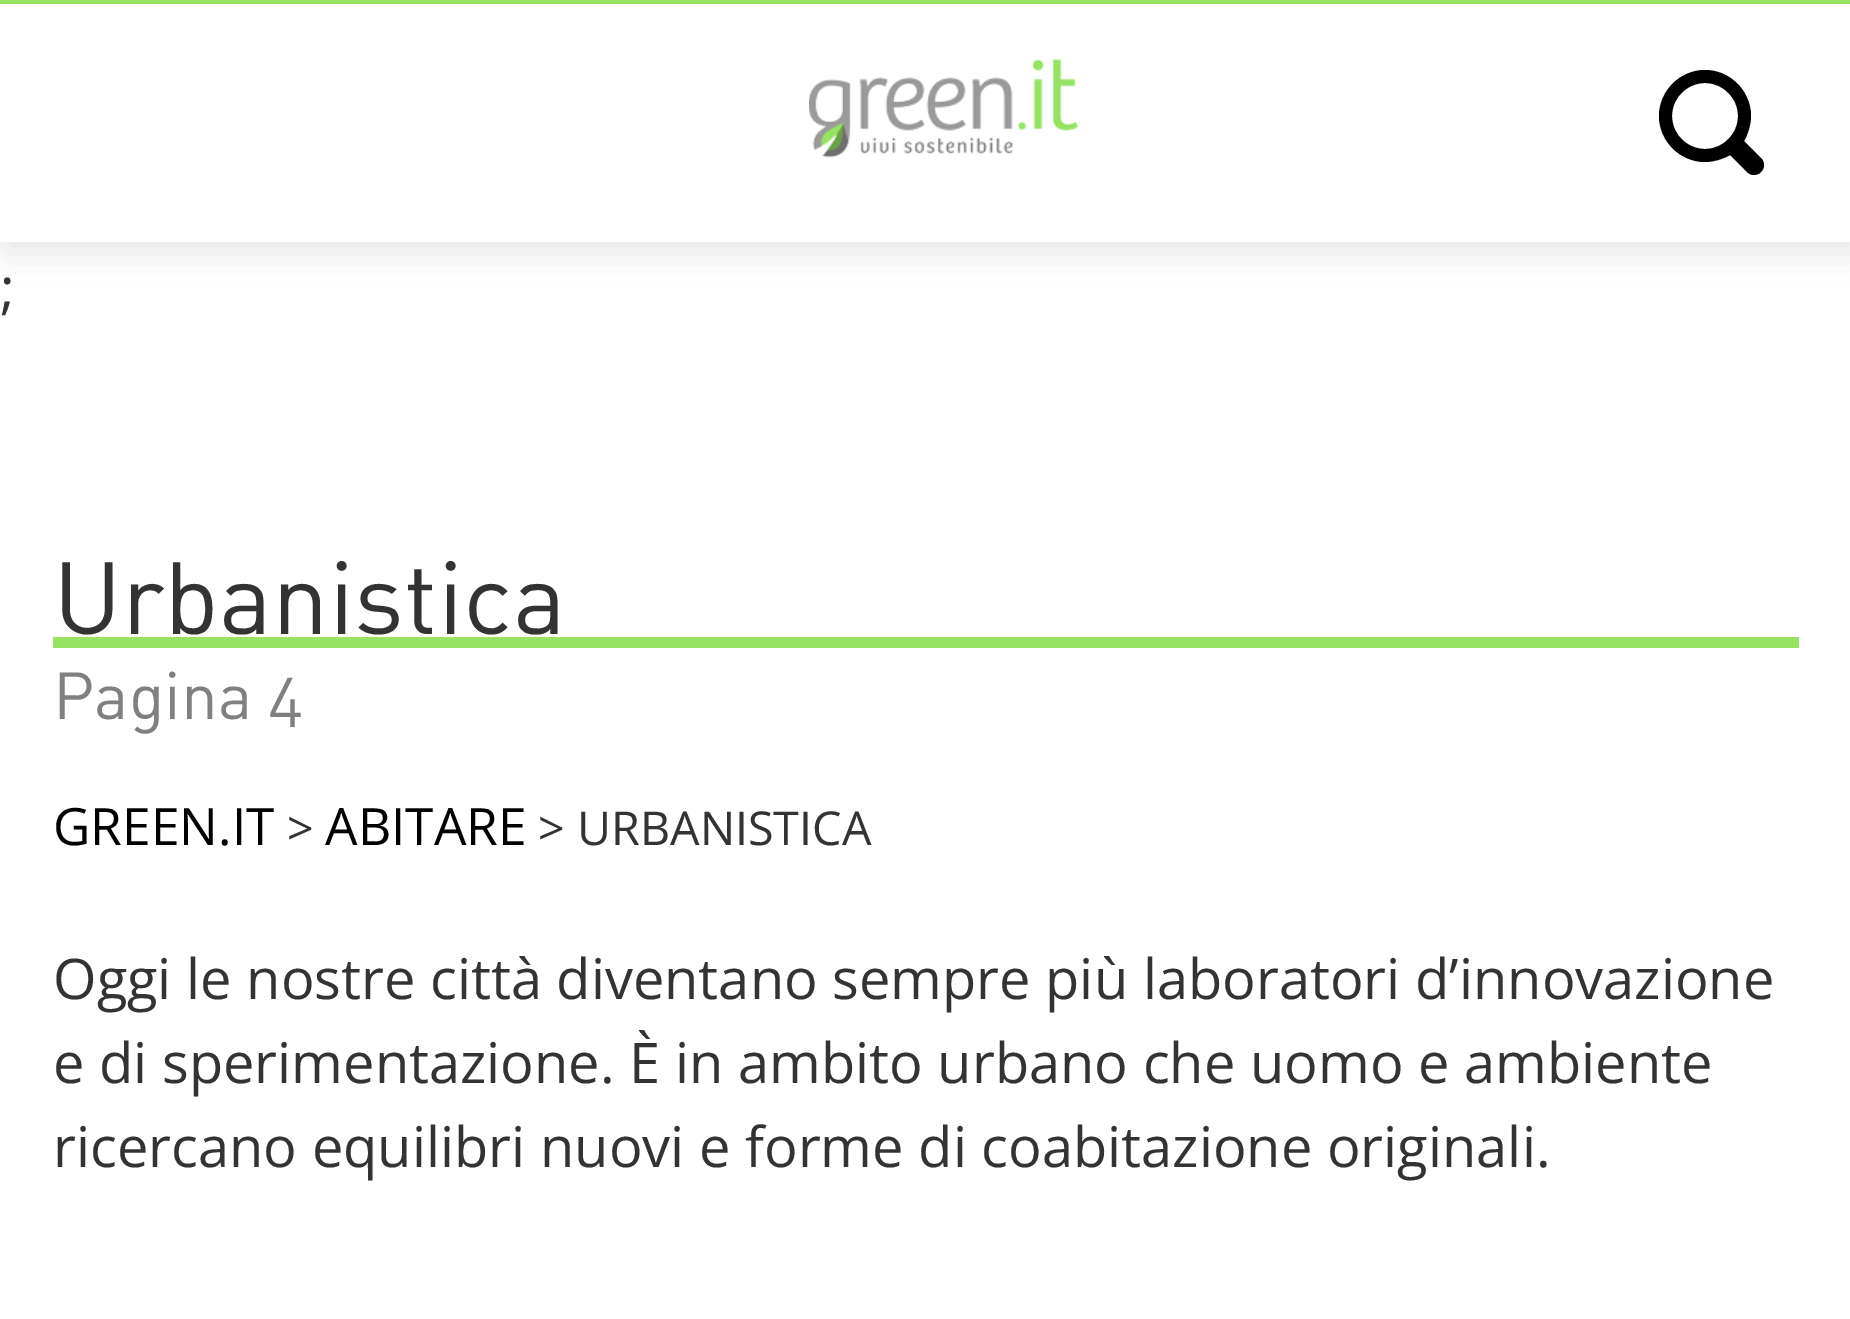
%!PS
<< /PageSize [1850 1319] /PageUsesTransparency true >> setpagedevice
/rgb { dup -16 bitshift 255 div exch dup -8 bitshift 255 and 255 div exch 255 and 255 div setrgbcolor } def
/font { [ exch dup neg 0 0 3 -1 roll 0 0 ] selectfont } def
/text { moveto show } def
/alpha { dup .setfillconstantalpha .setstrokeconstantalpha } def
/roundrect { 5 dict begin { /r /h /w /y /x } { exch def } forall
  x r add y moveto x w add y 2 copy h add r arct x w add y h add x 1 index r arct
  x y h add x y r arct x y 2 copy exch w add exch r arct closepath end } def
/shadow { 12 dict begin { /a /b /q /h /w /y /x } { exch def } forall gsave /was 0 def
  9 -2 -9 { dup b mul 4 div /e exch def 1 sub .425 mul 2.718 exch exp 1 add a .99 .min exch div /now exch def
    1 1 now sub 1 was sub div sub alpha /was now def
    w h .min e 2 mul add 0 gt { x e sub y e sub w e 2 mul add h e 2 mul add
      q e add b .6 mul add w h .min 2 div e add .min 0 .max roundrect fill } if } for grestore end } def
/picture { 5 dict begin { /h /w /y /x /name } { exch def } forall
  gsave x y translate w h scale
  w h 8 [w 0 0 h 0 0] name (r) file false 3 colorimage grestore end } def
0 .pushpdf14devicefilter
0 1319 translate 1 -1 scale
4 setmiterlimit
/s1 { /OpenSans-Regular 56 font 16#333333 rgb } def
/s2 { /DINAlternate-Regular 100.75 font 16#333333 rgb } def
/s3 { /DINAlternate-Regular 65.5 font 16#808080 rgb } def
/s4 { /OpenSans-Regular 51.5 font 16#000000 rgb } def
/s5 { /OpenSans-Regular 46.75 font 16#333333 rgb } def
16#FFFFFF rgb
0 0 1850 1319 rectfill
16#000000 rgb
4 11 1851 241 0 17.5 0.1 shadow
16#FFFFFF rgb
0 4 1850 238 rectfill
16#97E364 rgb
0 0 1850 4 rectfill
(pic1.raw) 809 58 269 100 picture
16#000000 rgb
1761 172 moveto 1757 176 1751 176 1747 172 curveto 1730 155 lineto 1723 159 1714 162 1705 162 curveto 1680 162 1659 141 1659 116 curveto 1659 91 1680 70 1705 70 curveto 1730 70 1751 91 1751 116 curveto 1751 125 1748 134 1744 141 curveto 1761 158 lineto 1765 162 1765 168 1761 172 curveto closepath 1705 83 moveto 1687 83 1672 98 1672 116 curveto 1672 134 1687 149 1705 149 curveto 1723 149 1738 134 1738 116 curveto 1738 98 1723 83 1705 83 curveto closepath fill
s1
(;) 0 308 text
s2
(Urbanistica) 53 634 text
16#97E364 rgb
53 637 1746 11 rectfill
s3
(Pagina 4) 53 719 text
s4
(GREEN.IT) 53 845 text
s5
(>) 287 845 text
s4
(ABITARE) 325 845 text
s5
(> URBANISTICA) 538 845 text
s1
(Oggi le nostre città diventano sempre più laboratori d’innovazione) 53 999 text
(e di sperimentazione. È in ambito urbano che uomo e ambiente) 53 1083 text
(ricercano equilibri nuovi e forme di coabitazione originali.) 53 1167 text
.poppdf14devicefilter showpage
